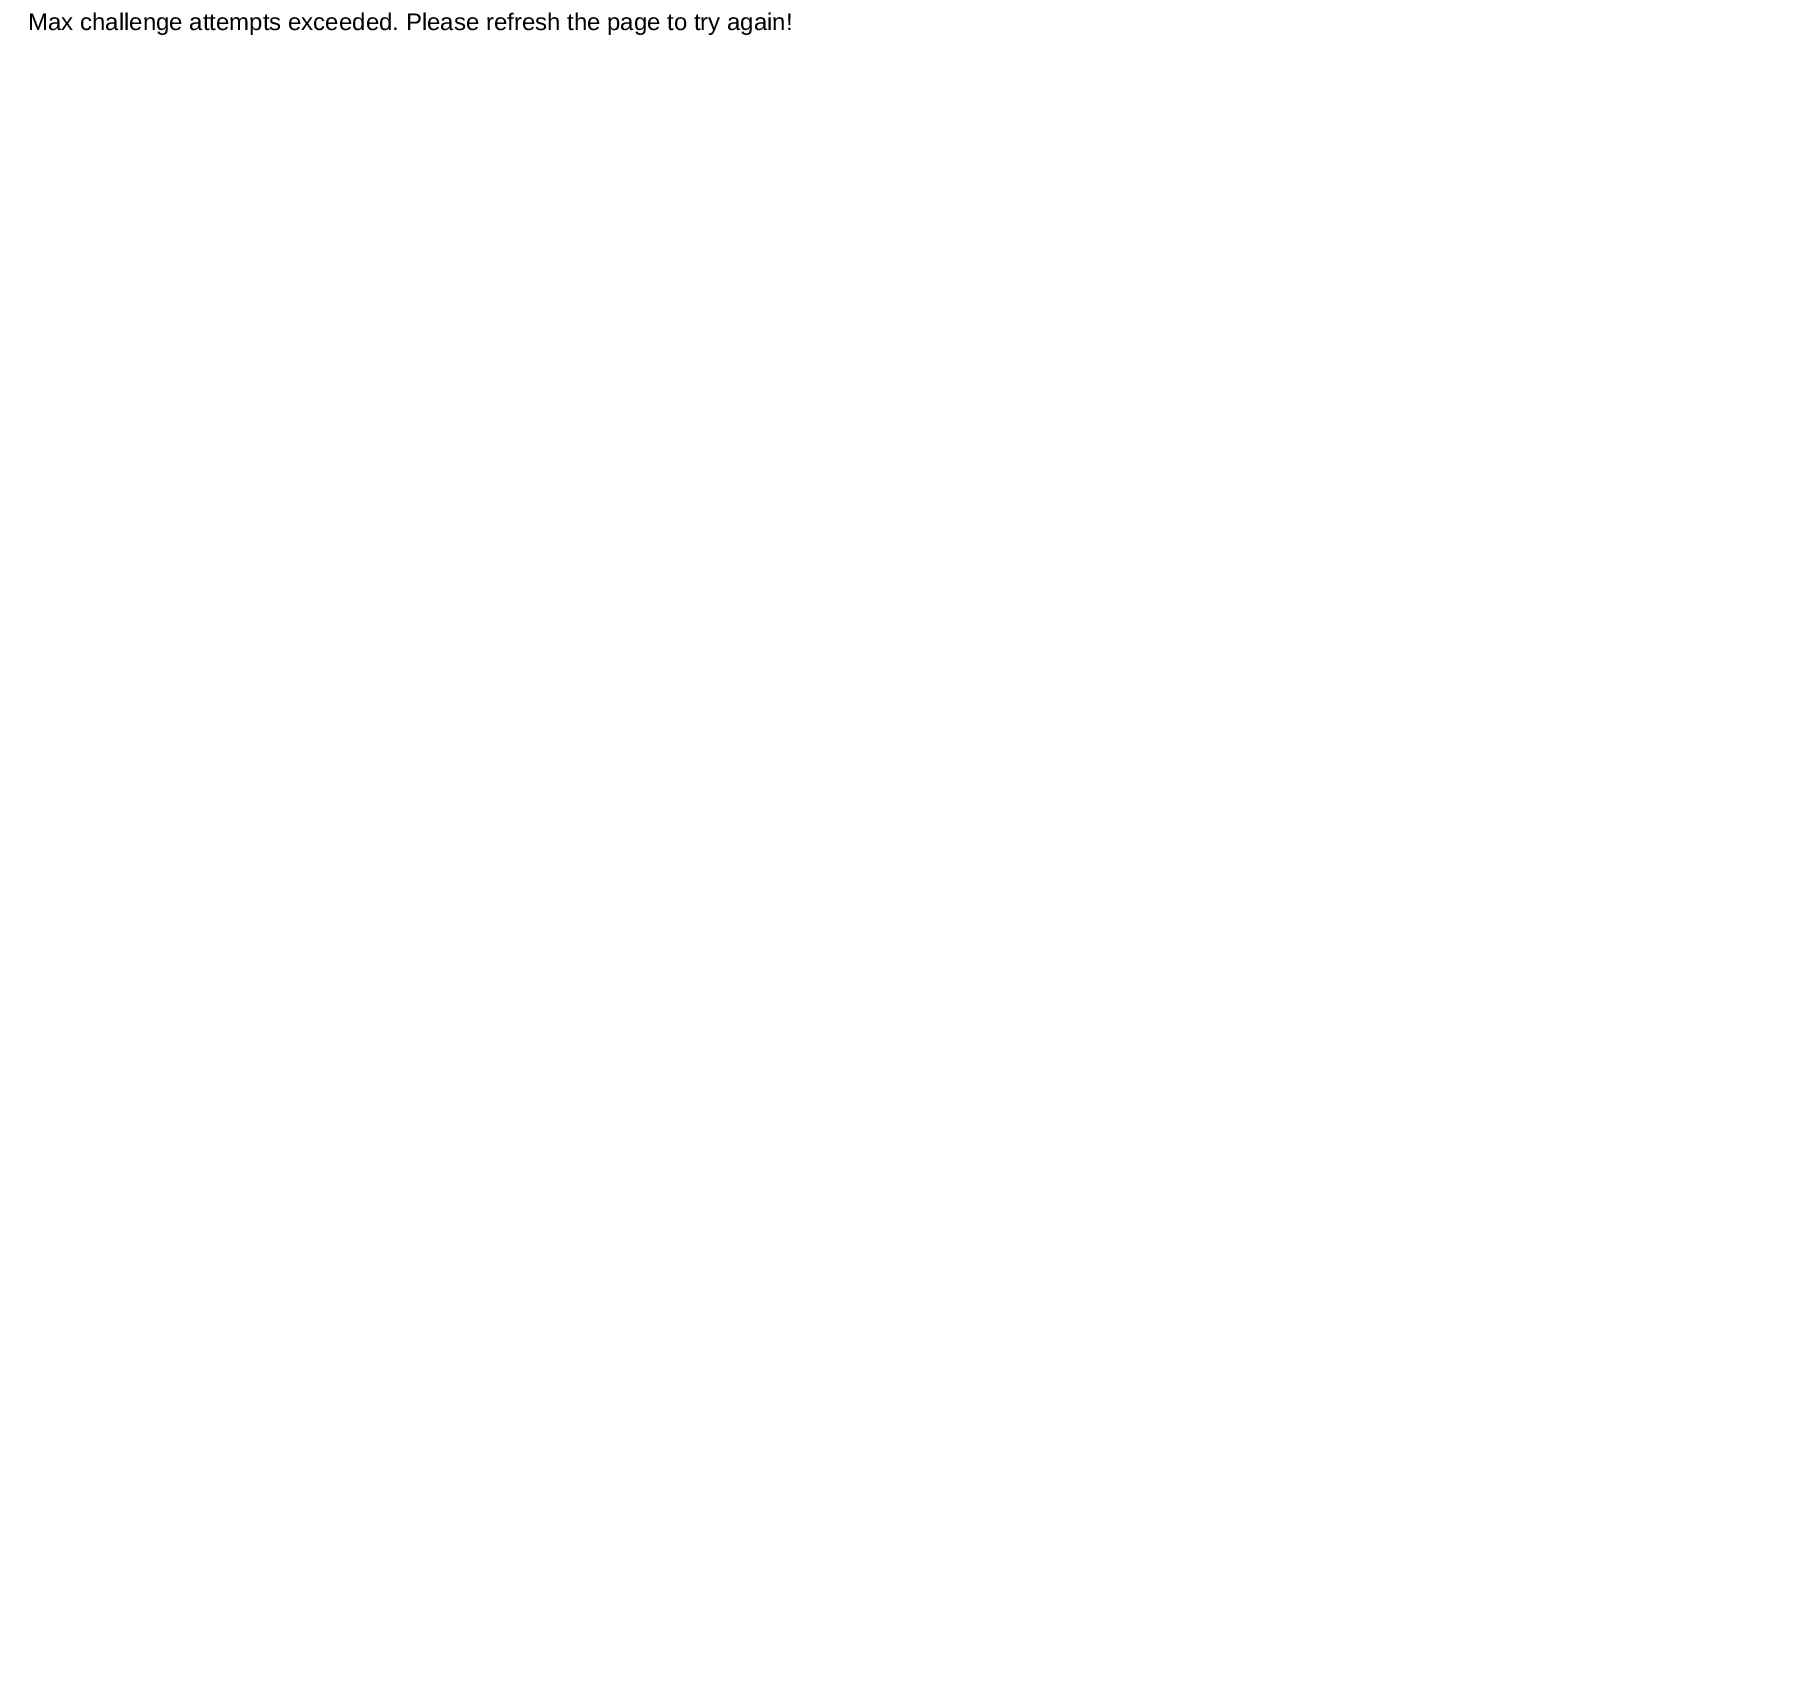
%!PS
<< /PageSize [1806 1706] >> setpagedevice
/rgb { dup -16 bitshift 255 div exch dup -8 bitshift 255 and 255 div exch 255 and 255 div setrgbcolor } def
/font { [ exch dup neg 0 0 3 -1 roll 0 0 ] selectfont } def
/text { moveto show } def
0 1706 translate 1 -1 scale
4 setmiterlimit
/s1 { /LiberationSans-Regular 24 font 16#000000 rgb } def
16#FFFFFF rgb
0 0 1806 1706 rectfill
s1
(Max challenge attempts exceeded. Please refresh the page to try again!) 28 30 text
showpage
